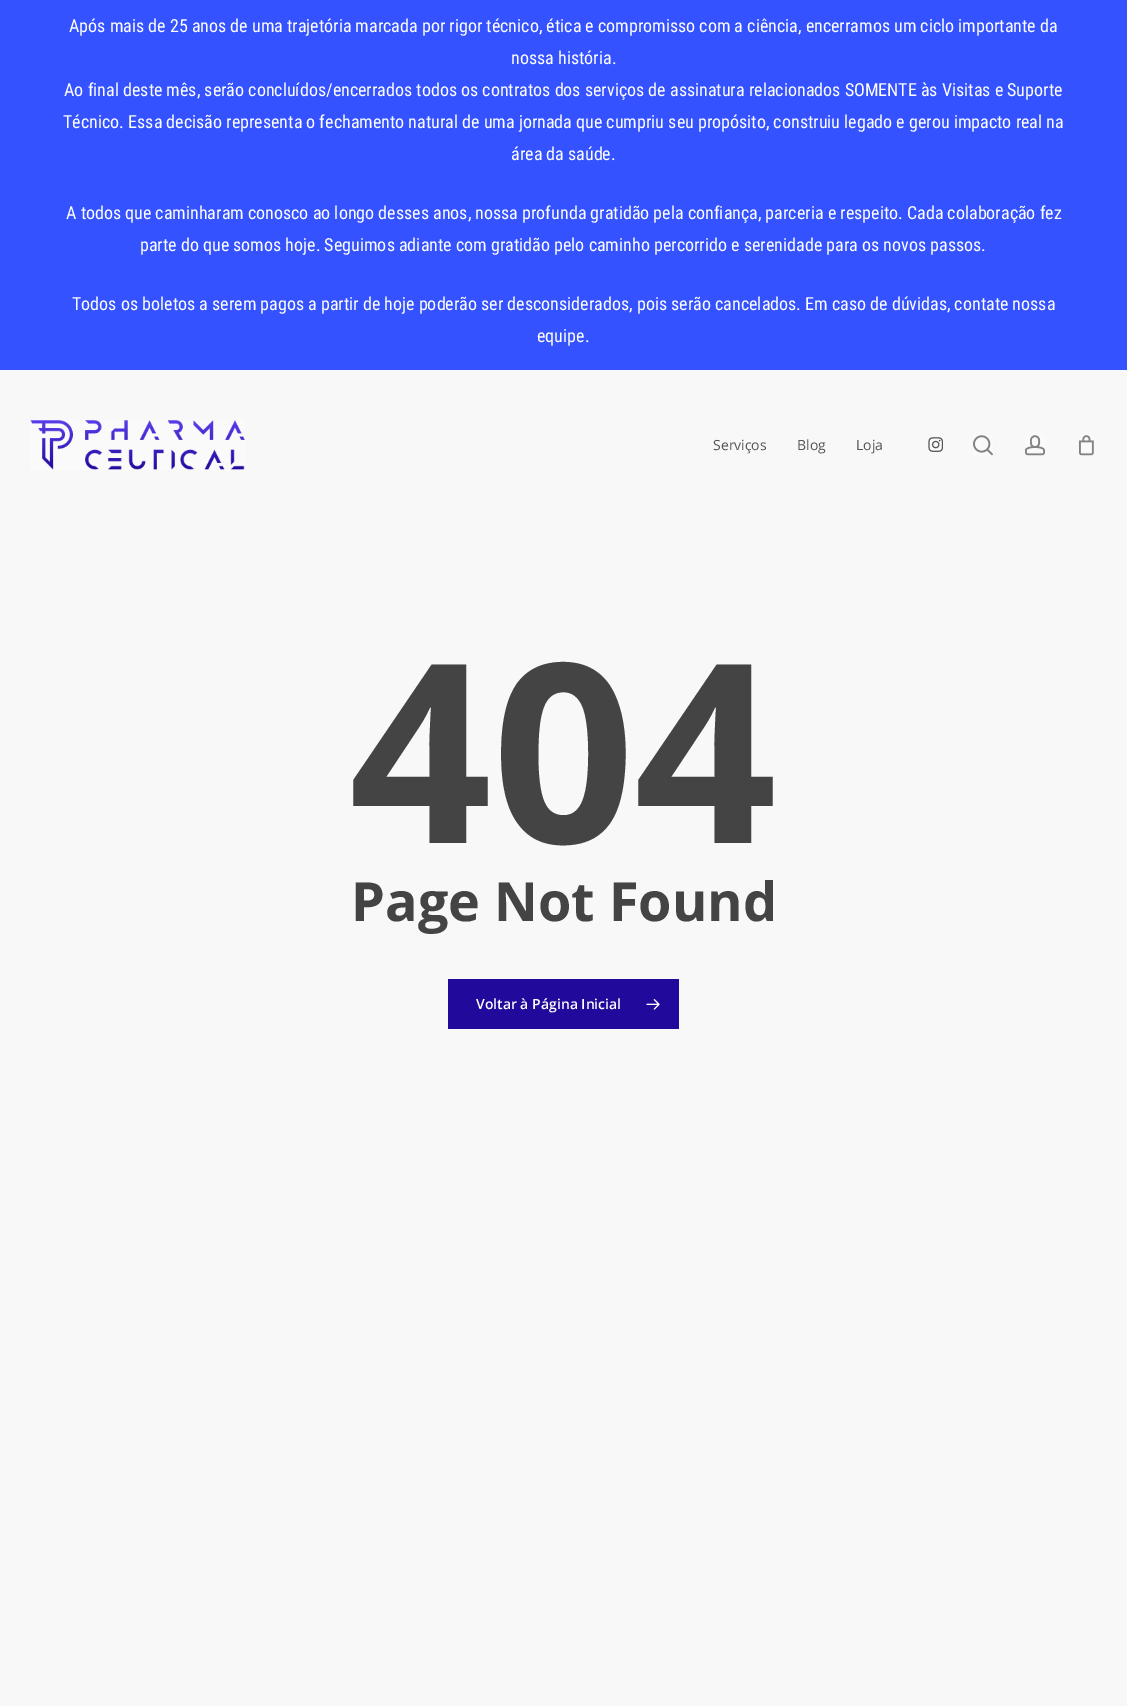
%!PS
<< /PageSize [1127 1706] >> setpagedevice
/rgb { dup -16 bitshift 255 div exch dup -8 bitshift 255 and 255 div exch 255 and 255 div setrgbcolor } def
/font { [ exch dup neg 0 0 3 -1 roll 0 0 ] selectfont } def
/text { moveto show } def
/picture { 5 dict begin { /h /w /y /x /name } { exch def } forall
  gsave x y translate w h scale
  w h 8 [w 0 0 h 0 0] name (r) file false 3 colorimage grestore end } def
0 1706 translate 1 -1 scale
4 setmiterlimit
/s1 { /RobotoCondensed-Regular 18 font 16#FFFFFF rgb } def
/s2 { /OpenSans-Regular 14 font 16#555555 rgb } def
/s3 { /OpenSans-Bold 250 font 16#444444 rgb } def
/s4 { /OpenSans-Bold 54 font 16#444444 rgb } def
/s5 { /OpenSans-SemiBold 14 font 16#FFFFFF rgb } def
16#F8F8F8 rgb
0 0 1127 1706 rectfill
16#3452FF rgb
0 0 1127 370 rectfill
s1
(Após mais de 25 anos de uma trajetória marcada por rigor técnico, ética e compromisso com a ciência, encerramos um ciclo importante da) 69 32 text
(nossa história.) 511 64 text
(Ao final deste mês, serão concluídos/encerrados todos os contratos dos serviços de assinatura relacionados SOMENTE às Visitas e Suporte) 64 96 text
(Técnico. Essa decisão representa o fechamento natural de uma jornada que cumpriu seu propósito, construiu legado e gerou impacto real na) 63 128 text
(área da saúde.) 511 160 text
(A todos que caminharam conosco ao longo desses anos, nossa profunda gratidão pela confiança, parceria e respeito. Cada colaboração fez) 66 219 text
(parte do que somos hoje. Seguimos adiante com gratidão pelo caminho percorrido e serenidade para os novos passos.) 140 251 text
(Todos os boletos a serem pagos a partir de hoje poderão ser desconsiderados, pois serão cancelados. Em caso de dúvidas, contate nossa) 72 310 text
(equipe.) 537 342 text
(pic1.raw) 30 420 215 50 picture
s2
(Serviços) 713 450 text
(Blog) 797 450 text
(Loja) 856 450 text
(pic2.raw) 928 437 15 15 picture
(pic3.raw) 973 435 20 21 picture
(pic4.raw) 1025 435 20 21 picture
(pic5.raw) 1079 435 15 21 picture
s3
(404) 349 843 text
s4
(Page Not Found) 351 921 text
16#21099B rgb
448 979 231 50 rectfill
s5
(Voltar à Página Inicial) 476 1009 text
(pic6.raw) 646 999 14 11 picture
showpage
